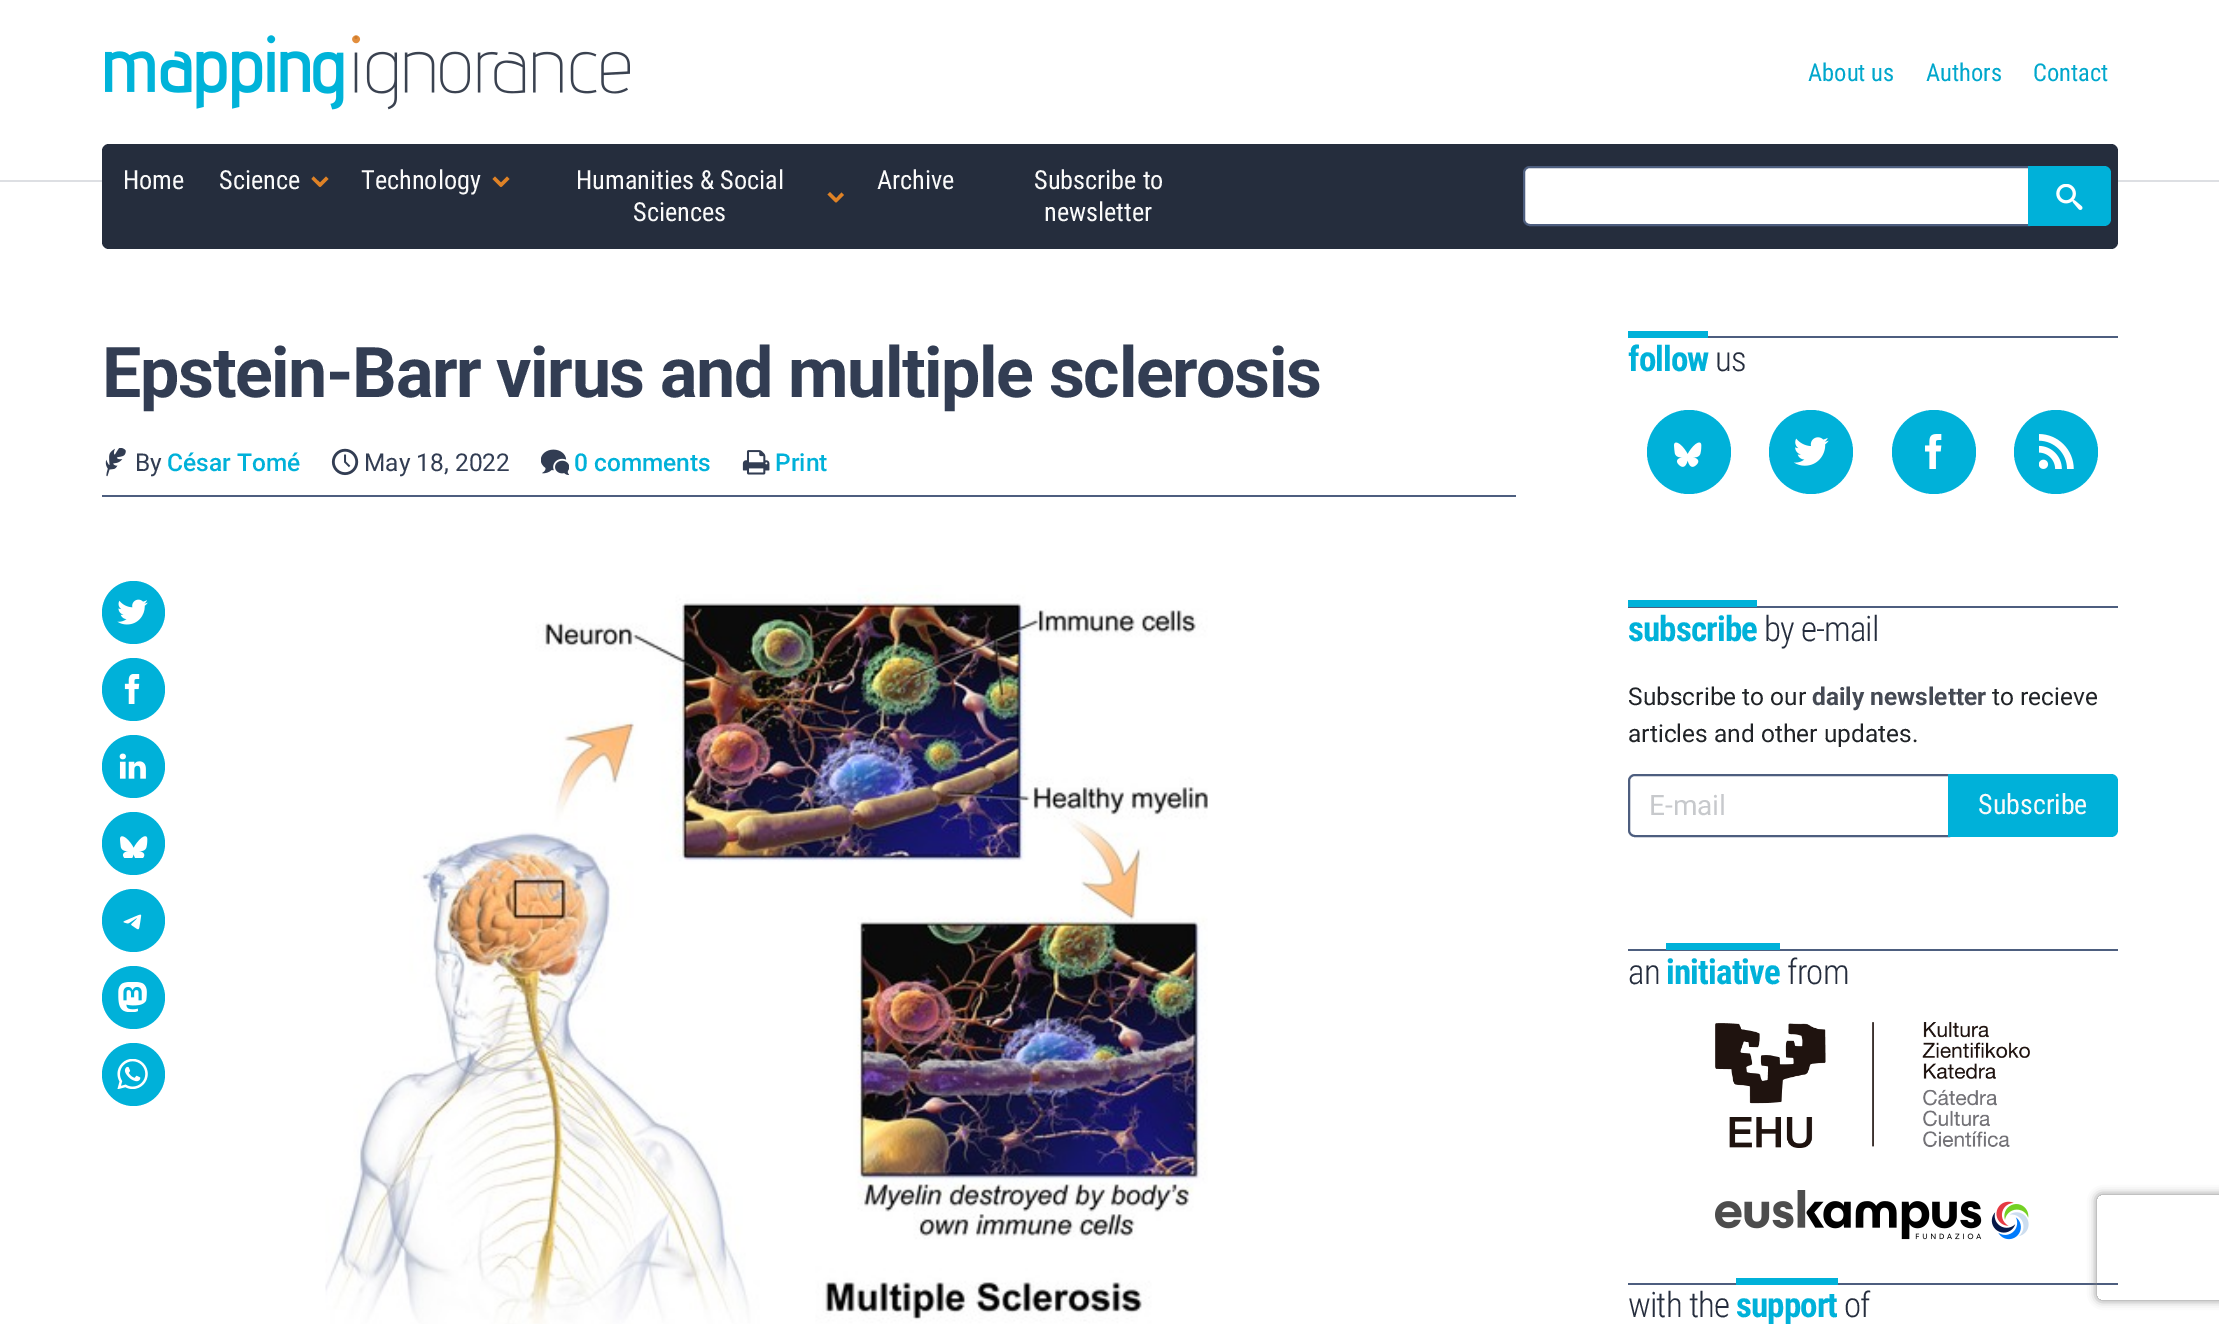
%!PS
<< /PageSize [2219 1324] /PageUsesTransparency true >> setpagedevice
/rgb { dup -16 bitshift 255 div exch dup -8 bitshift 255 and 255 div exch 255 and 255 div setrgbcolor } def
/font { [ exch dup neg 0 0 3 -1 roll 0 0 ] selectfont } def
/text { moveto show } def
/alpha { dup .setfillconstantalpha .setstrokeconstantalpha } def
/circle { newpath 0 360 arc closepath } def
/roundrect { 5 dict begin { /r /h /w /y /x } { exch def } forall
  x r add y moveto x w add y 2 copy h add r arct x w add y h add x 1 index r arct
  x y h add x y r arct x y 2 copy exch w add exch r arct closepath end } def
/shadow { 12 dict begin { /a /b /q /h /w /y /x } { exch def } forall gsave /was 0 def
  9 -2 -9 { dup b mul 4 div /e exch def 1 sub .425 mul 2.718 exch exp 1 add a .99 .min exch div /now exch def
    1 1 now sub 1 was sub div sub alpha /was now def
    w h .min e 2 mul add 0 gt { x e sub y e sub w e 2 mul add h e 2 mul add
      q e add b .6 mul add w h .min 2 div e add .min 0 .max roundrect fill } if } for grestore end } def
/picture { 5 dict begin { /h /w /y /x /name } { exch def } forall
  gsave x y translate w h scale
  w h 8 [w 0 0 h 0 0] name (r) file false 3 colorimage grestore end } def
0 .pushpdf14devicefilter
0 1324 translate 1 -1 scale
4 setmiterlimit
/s1 { /RobotoCondensed-Regular 24.5 font 16#00A7CC rgb } def
/s2 { /RobotoCondensed-Regular 26.25 font 16#FAFAFA rgb } def
/s3 { /Roboto-Regular 24.5 font 16#323D53 rgb } def
/s4 { /Roboto-Medium 24.5 font 16#00B1D9 rgb } def
/s5 { /Roboto-Regular 24.5 font 16#202327 rgb } def
/s6 { /Roboto-Bold 24.5 font 16#454A54 rgb } def
/s7 { /Roboto-Regular 28 font 16#C7C9CC rgb } def
/s8 { /RobotoCondensed-Regular 28 font 16#FAFAFA rgb } def
16#FFFFFF rgb
0 0 2219 1324 rectfill
(pic1.raw) 105 35 525 75 picture
s1
(About us) 1808 81 text
(Authors) 1926 81 text
(Contact) 2033 81 text
16#DDDFE3 rgb
0 180 2219 2 rectfill
16#252D3D rgb
102 144 2016 105 7 roundrect fill
s2
(Home) 123 189 text
(Science) 219 189 text
16#DF8226 rgb
318 184.5 moveto 326 176.5 lineto 328.5 179 lineto 320.5 187 lineto closepath fill
311.5 179 moveto 313.5 176.5 lineto 322 184.5 lineto 319.5 187 lineto closepath fill
s2
(Technology) 361 189 text
16#DF8226 rgb
499 184.5 moveto 507 176.5 lineto 509.5 179 lineto 501.5 187 lineto closepath fill
492.5 179 moveto 495 176.5 lineto 503 184.5 lineto 500.5 187 lineto closepath fill
s2
(Humanities & Social) 576 189 text
(Sciences) 633 221 text
16#DF8226 rgb
834.5 200 moveto 841.5 192.5 lineto 844 195 lineto 836.5 202.5 lineto closepath fill
827.5 194.5 moveto 830 192 lineto 838 200 lineto 835.5 202.5 lineto closepath fill
s2
(Archive) 877 189 text
(Subscribe to) 1034 189 text
(newsletter) 1044 221 text
16#FFFFFF rgb
1530 167 moveto 2029 167 lineto 2029 225 lineto 1530 225 lineto 1526.5 225 1524 222.5 1524 219 curveto 1524 173 lineto 1524 169.5 1526.5 167 1530 167 curveto closepath gsave fill grestore
16#4D5E7F rgb
2 setlinewidth
stroke
16#00B1D9 rgb
2028 166 moveto 2104 166 lineto 2108 166 2111 169 2111 173 curveto 2111 219 lineto 2111 223 2108 226 2104 226 curveto 2028 226 lineto closepath fill
(pic2.raw) 2056 184 27 26 picture
/Roboto-Bold 70 font
16#323D53 rgb
102 397 moveto -1.4 0 (Epstein-Barr virus and multiple sclerosis) ashow
(pic3.raw) 105 448 21 29 picture
s3
(By) 135 471 text
s4
(César Tomé) 167 471 text
(pic4.raw) 331 448 28 28 picture
s3
(May 18, 2022) 364 471 text
(pic5.raw) 541 449 28 26 picture
s4
(0 comments) 574 471 text
(pic6.raw) 742 450 28 25 picture
(Print) 775 471 text
16#4D5E7F rgb
102 495 1414 2 rectfill
16#00B1D9 rgb
133.5 612.5 31.5 circle fill
(pic7.raw) 117 599 31 26 picture
133.5 689.5 31.5 circle fill
(pic8.raw) 124 674 16 30 picture
133.5 766.5 31.5 circle fill
(pic9.raw) 119 753 27 26 picture
133.5 843.5 31.5 circle fill
(pic10.raw) 120 836 28 22 picture
133.5 920.5 31.5 circle fill
(pic11.raw) 123 914 19 16 picture
133.5 997.5 31.5 circle fill
(pic12.raw) 118 982 29 30 picture
133.5 1074.5 31.5 circle fill
(pic13.raw) 117 1059 31 30 picture
(pic14.raw) 325 585 883 739 picture
16#4D5E7F rgb
1708 336 410 2 rectfill
/RobotoCondensed-Bold 35 font
16#00B1D9 rgb
1628 371 moveto -0.9 0 (follow) ashow
1628 331 80 7 rectfill
/RobotoCondensed-Light 35 font
16#252D3D rgb
1715 371 moveto -0.9 0 (us) ashow
16#00B1D9 rgb
1689 452 42 circle fill
(pic15.raw) 1674 442 28 25 picture
1811 452 42 circle fill
(pic16.raw) 1794 437 35 29 picture
1934 452 42 circle fill
(pic17.raw) 1925 434 17 35 picture
2056 452 42 circle fill
(pic18.raw) 2039 434 35 35 picture
16#4D5E7F rgb
1628 606 490 2 rectfill
/RobotoCondensed-Bold 35 font
16#00B1D9 rgb
1628 641 moveto -0.9 0 (subscribe) ashow
1628 600 129 7 rectfill
/RobotoCondensed-Light 35 font
16#252D3D rgb
1764 641 moveto -0.9 0 (by e-mail) ashow
s5
(Subscribe to our) 1628 705 text
s6
(daily newsletter) 1812 705 text
s5
(to recieve) 1992 705 text
(articles and other updates.) 1628 742 text
16#4D5E7F rgb
1635 775 moveto 1949 775 lineto 1949 836 lineto 1635 836 lineto 1631.5 836 1629 833.5 1629 830 curveto 1629 781 lineto 1629 777.5 1631.5 775 1635 775 curveto closepath stroke
s7
(E-mail) 1649 815 text
16#00B1D9 rgb
1948 774 moveto 2111 774 lineto 2115 774 2118 777 2118 781 curveto 2118 830 lineto 2118 834 2115 837 2111 837 curveto 1948 837 lineto closepath fill
s8
(Subscribe) 1978 814 text
16#4D5E7F rgb
1628 949 490 2 rectfill
/RobotoCondensed-Light 35 font
16#252D3D rgb
1628 984 moveto -0.9 0 (an) ashow
/RobotoCondensed-Bold 35 font
16#00B1D9 rgb
1666 984 moveto -0.9 0 (initiative) ashow
1666 943 114 7 rectfill
/RobotoCondensed-Light 35 font
16#252D3D rgb
1787 984 moveto -0.9 0 (from) ashow
(pic19.raw) 1715 1022 315 126 picture
(pic20.raw) 1715 1190 314 50 picture
16#4D5E7F rgb
1628 1283 490 2 rectfill
16#252D3D rgb
1628 1317 moveto -0.9 0 (with the) ashow
/RobotoCondensed-Bold 35 font
16#00B1D9 rgb
1736 1317 moveto -0.9 0 (support) ashow
1736 1278 102 7 rectfill
/RobotoCondensed-Light 35 font
16#252D3D rgb
1844 1317 moveto -0.9 0 (of) ashow
gsave
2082 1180 moveto 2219 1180 lineto 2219 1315 lineto 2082 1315 lineto closepath 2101 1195 moveto 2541 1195 lineto 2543 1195 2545 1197 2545 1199 curveto 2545 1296 lineto 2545 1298 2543 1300 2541 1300 curveto 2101 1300 lineto 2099 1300 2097 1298 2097 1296 curveto 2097 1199 lineto 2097 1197 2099 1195 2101 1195 curveto closepath eoclip newpath
16#808080 rgb
2097 1195 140 105 4 4.5 1 shadow
grestore
.poppdf14devicefilter showpage
